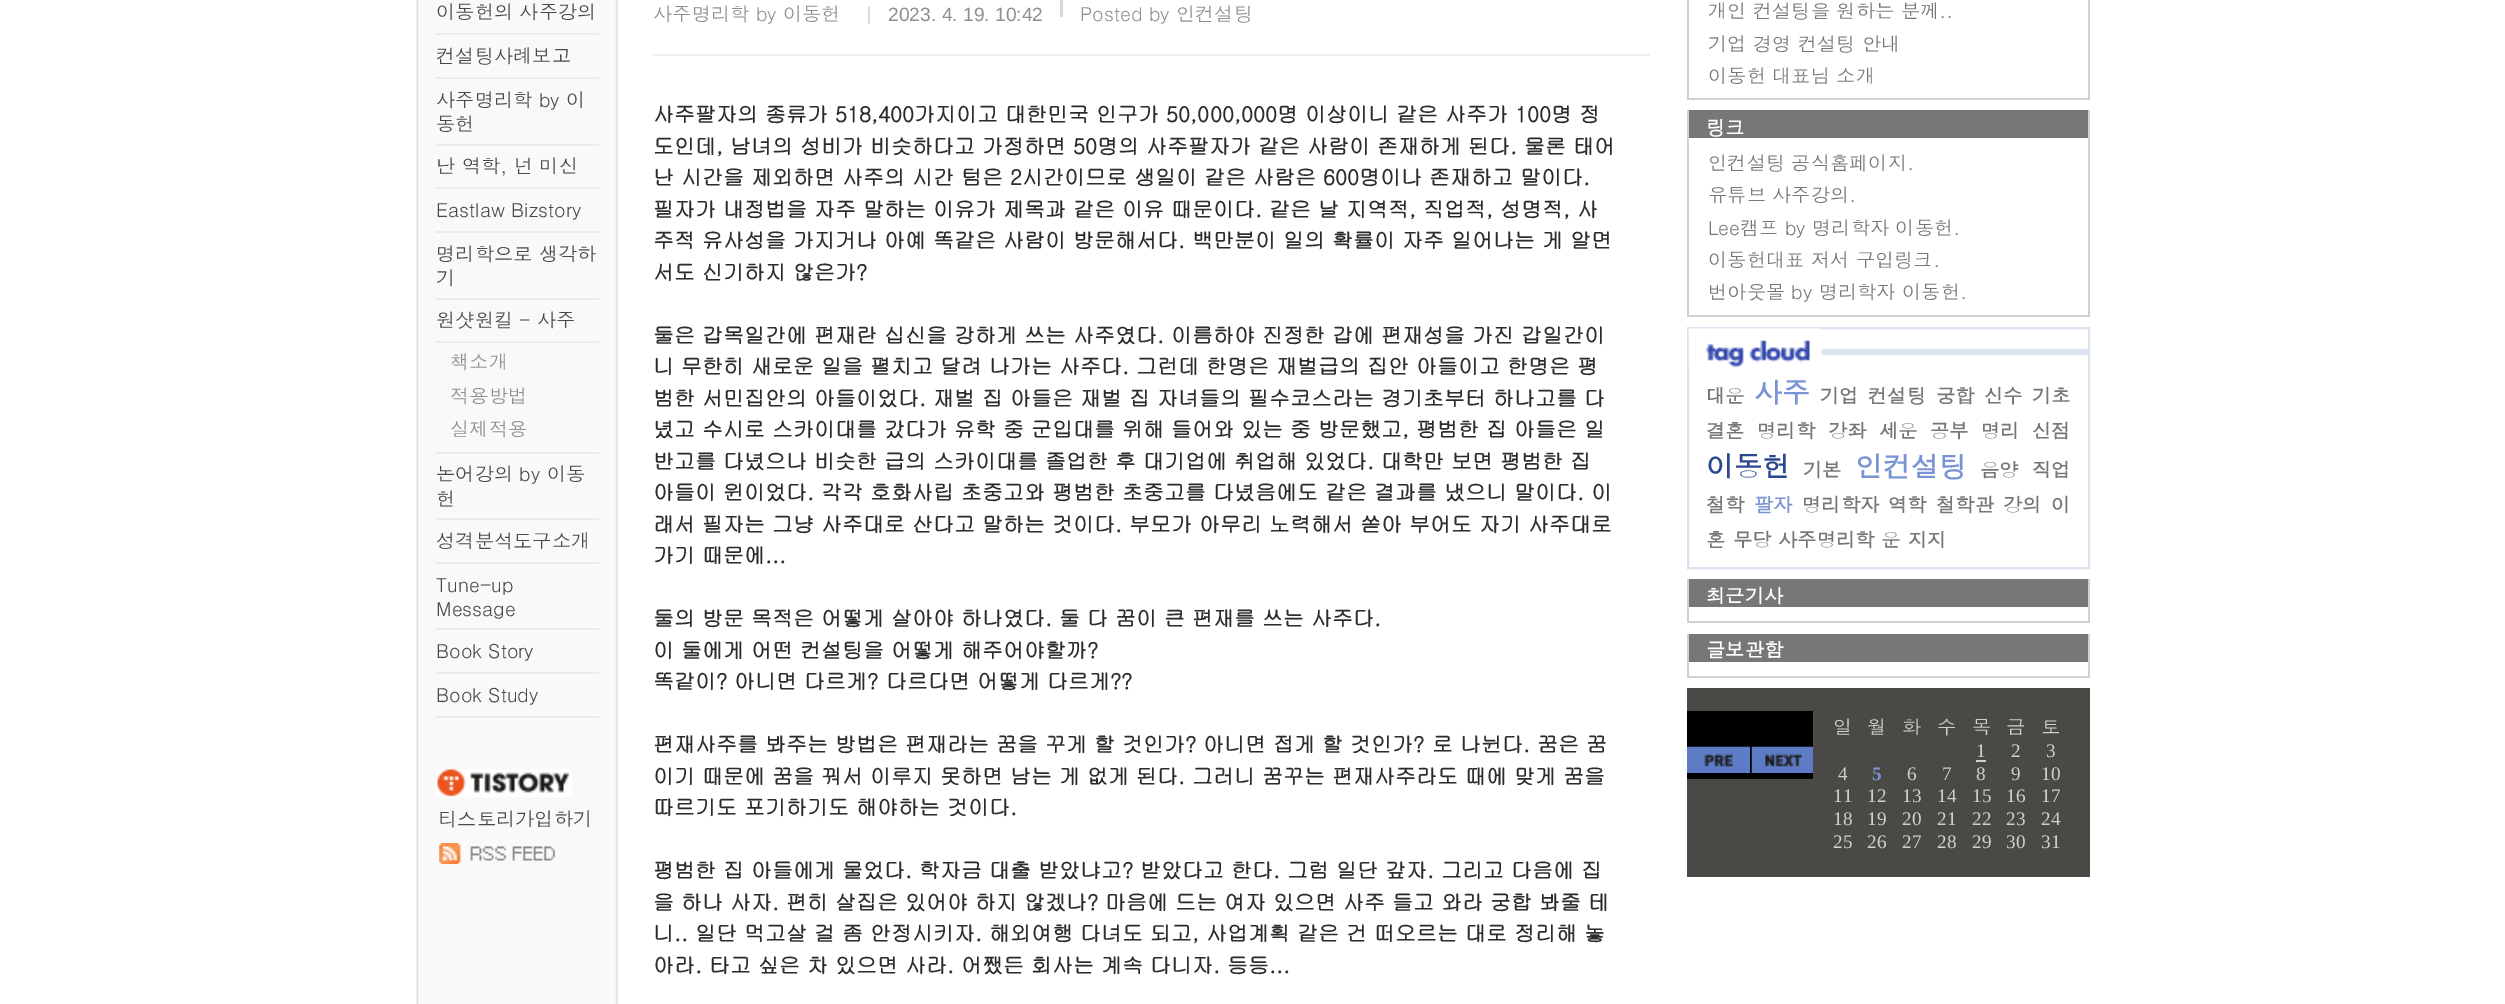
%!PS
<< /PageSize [2505 1004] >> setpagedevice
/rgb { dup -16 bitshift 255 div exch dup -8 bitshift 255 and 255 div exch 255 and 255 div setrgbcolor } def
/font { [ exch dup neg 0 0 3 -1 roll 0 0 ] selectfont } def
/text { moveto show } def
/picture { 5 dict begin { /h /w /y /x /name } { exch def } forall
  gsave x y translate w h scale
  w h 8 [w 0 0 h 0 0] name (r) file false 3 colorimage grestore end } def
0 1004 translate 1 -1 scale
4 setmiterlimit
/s1 { /Dotum-Regular 19.25 font 16#4A4945 rgb } def
/s2 { /Dotum-Regular 19.25 font 16#908F8D rgb } def
/s3 { /LiberationSans-Regular 19.25 font 16#908F8D rgb } def
/s4 { /Gulim-Bold 21 font 16#2D2C2D rgb } def
/s5 { /Dotum-Regular 19.25 font 16#777777 rgb } def
/s6 { /Dotum-Bold 19.25 font 16#FFFFFF rgb } def
/s7 { /Dotum-Bold 19.25 font 16#777777 rgb } def
/s8 { /Dotum-Bold 28 font 16#7A93D5 rgb } def
/s9 { /Dotum-Bold 28 font 16#2A488E rgb } def
/s10 { /Dotum-Bold 19.25 font 16#7A93D5 rgb } def
/s11 { /Dotum-Regular 19.25 font 16#D0D0D0 rgb } def
/s12 { /LiberationSerif-Regular 19.25 font 16#D0D0D0 rgb } def
/s13 { /LiberationSerif-Bold 19.25 font 16#7A93D5 rgb } def
16#FFFFFF rgb
0 0 2505 1004 rectfill
(pic1.raw) 416 0 202 1004 picture
16#EBEBEB rgb
436 33 163 2 rectfill
s1
(이동헌의 사주강의) 436 19 text
16#EBEBEB rgb
436 77 163 2 rectfill
s1
(컨설팅사례보고) 436 63 text
16#EBEBEB rgb
436 144 163 2 rectfill
s1
(사주명리학 by 이) 436 107 text
(동헌) 436 131 text
16#EBEBEB rgb
436 187 163 2 rectfill
s1
(난 역학, 넌 미신) 436 173 text
16#EBEBEB rgb
436 231 163 2 rectfill
s1
(Eastlaw Bizstory) 436 217 text
16#EBEBEB rgb
436 298 163 2 rectfill
s1
(명리학으로 생각하) 436 261 text
(기) 436 285 text
16#EBEBEB rgb
436 452 163 2 rectfill
s1
(원샷원킬 - 사주) 436 327 text
16#EBEBEB rgb
436 341 163 2 rectfill
s2
(책소개) 450 369 text
(적용방법) 450 403 text
(실제적용) 450 436 text
16#EBEBEB rgb
436 518 163 2 rectfill
s1
(논어강의 by 이동) 436 481 text
(헌) 436 506 text
16#EBEBEB rgb
436 562 163 2 rectfill
s1
(성격분석도구소개) 436 548 text
16#EBEBEB rgb
436 628 163 2 rectfill
s1
(Tune-up) 436 592 text
(Message) 436 616 text
16#EBEBEB rgb
436 672 163 2 rectfill
s1
(Book Story) 436 658 text
16#EBEBEB rgb
436 716 163 2 rectfill
s1
(Book Study) 436 702 text
(pic2.raw) 436 769 136 28 picture
(티스토리가입하기) 438 826 text
(pic3.raw) 439 843 116 21 picture
16#EFEFEF rgb
653 54 997 2 rectfill
s2
(사주명리학 by 이동헌) 653 21 text
(pic4.raw) 868 6 2 18 picture
s3
(2023. 4. 19. 10:42) 888 21 text
s2
(Posted by 인컨설팅) 1080 21 text
16#D7D7D7 rgb
1060 0 3 17 rectfill
s4
(사주팔자의 종류가 518,400가지이고 대한민국 인구가 50,000,000명 이상이니 같은 사주가 100명 정) 653 122 text
(도인데, 남녀의 성비가 비슷하다고 가정하면 50명의 사주팔자가 같은 사람이 존재하게 된다. 물론 태어) 653 154 text
(난 시간을 제외하면 사주의 시간 텀은 2시간이므로 생일이 같은 사람은 600명이나 존재하고 말이다.) 653 185 text
(필자가 내정법을 자주 말하는 이유가 제목과 같은 이유 때문이다. 같은 날 지역적, 직업적, 성명적, 사) 653 217 text
(주적 유사성을 가지거나 아예 똑같은 사람이 방문해서다. 백만분이 일의 확률이 자주 일어나는 게 알면) 653 248 text
(서도 신기하지 않은가?) 653 280 text
(둘은 갑목일간에 편재란 십신을 강하게 쓰는 사주였다. 이름하야 진정한 갑에 편재성을 가진 갑일간이) 653 343 text
(니 무한히 새로운 일을 펼치고 달려 나가는 사주다. 그런데 한명은 재벌급의 집안 아들이고 한명은 평) 653 374 text
(범한 서민집안의 아들이었다. 재벌 집 아들은 재벌 집 자녀들의 필수코스라는 경기초부터 하나고를 다) 653 406 text
(녔고 수시로 스카이대를 갔다가 유학 중 군입대를 위해 들어와 있는 중 방문했고, 평범한 집 아들은 일) 653 437 text
(반고를 다녔으나 비슷한 급의 스카이대를 졸업한 후 대기업에 취업해 있었다. 대학만 보면 평범한 집) 653 469 text
(아들이 윈이었다. 각각 호화사립 초중고와 평범한 초중고를 다녔음에도 같은 결과를 냈으니 말이다. 이) 653 500 text
(래서 필자는 그냥 사주대로 산다고 말하는 것이다. 부모가 아무리 노력해서 쏟아 부어도 자기 사주대로) 653 532 text
(가기 때문에...) 653 563 text
(둘의 방문 목적은 어떻게 살아야 하나였다. 둘 다 꿈이 큰 편재를 쓰는 사주다.) 653 626 text
(이 둘에게 어떤 컨설팅을 어떻게 해주어야할까?) 653 658 text
(똑같이? 아니면 다르게? 다르다면 어떻게 다르게??) 653 689 text
(편재사주를 봐주는 방법은 편재라는 꿈을 꾸게 할 것인가? 아니면 접게 할 것인가? 로 나뉜다. 꿈은 꿈) 653 752 text
(이기 때문에 꿈을 꿔서 이루지 못하면 남는 게 없게 된다. 그러니 꿈꾸는 편재사주라도 때에 맞게 꿈을) 653 784 text
(따르기도 포기하기도 해야하는 것이다.) 653 815 text
(평범한 집 아들에게 물었다. 학자금 대출 받았냐고? 받았다고 한다. 그럼 일단 갚자. 그리고 다음에 집) 653 878 text
(을 하나 사자. 편히 살집은 있어야 하지 않겠나? 마음에 드는 여자 있으면 사주 들고 와라 궁합 봐줄 테) 653 910 text
(니.. 일단 먹고살 걸 좀 안정시키자. 해외여행 다녀도 되고, 사업계획 같은 건 떠오르는 대로 정리해 놓) 653 941 text
(아라. 타고 싶은 차 있으면 사라. 어쨌든 회사는 계속 다니자. 등등...) 653 973 text
16#D0D0D0 rgb
2088 0 2 100 rectfill
1687 98 403 2 rectfill
1687 0 2 100 rectfill
s5
(개인 컨설팅을 원하는 분께..) 1708 18 text
(기업 경영 컨설팅 안내) 1708 51 text
(이동헌 대표님 소개) 1708 83 text
16#D0D0D0 rgb
2088 110 2 207 rectfill
1687 315 403 2 rectfill
1687 110 2 207 rectfill
16#777777 rgb
1689 110 399 28 rectfill
s6
(링크) 1706 135 text
s5
(인컨설팅 공식홈페이지.) 1708 170 text
(유튜브 사주강의.) 1708 202 text
(Lee캠프 by 명리학자 이동헌.) 1708 235 text
(이동헌대표 저서 구입링크.) 1708 267 text
(번아웃몰 by 명리학자 이동헌.) 1708 299 text
16#D9E2EE rgb
1821 349 269 6 rectfill
2 setlinewidth
1688 328 401 240 rectstroke
(pic5.raw) 1688 328 134 39 picture
s7
(대운) 1706 403 text
s8
(사주) 1754 403 text
s7
(기업) 1820 403 text
(컨설팅) 1868 403 text
(궁합) 1936 403 text
(신수) 1984 403 text
(기초) 2032 403 text
(결혼) 1706 438 text
(명리학) 1757 438 text
(강좌) 1828 438 text
(세운) 1879 438 text
(공부) 1930 438 text
(명리) 1981 438 text
(신점) 2032 438 text
s9
(이동헌) 1706 477 text
s7
(기본) 1803 477 text
s8
(인컨설팅) 1855 477 text
s7
(음양) 1980 477 text
(직업) 2032 477 text
(철학) 1706 512 text
s10
(팔자) 1754 512 text
s7
(명리학자) 1802 512 text
(역학) 1888 512 text
(철학관) 1936 512 text
(강의) 2003 512 text
(이) 2051 512 text
(혼) 1706 547 text
(무당) 1733 547 text
(사주명리학) 1778 547 text
(운) 1881 547 text
(지지) 1908 547 text
16#D0D0D0 rgb
2088 579 2 44 rectfill
1687 621 403 2 rectfill
1687 579 2 44 rectfill
16#777777 rgb
1689 579 399 28 rectfill
s6
(최근기사) 1706 603 text
16#D0D0D0 rgb
2088 634 2 43 rectfill
1687 676 403 2 rectfill
1687 634 2 43 rectfill
16#777777 rgb
1689 634 399 28 rectfill
s6
(글보관함) 1706 657 text
16#4A4945 rgb
1687 688 403 189 rectfill
16#000000 rgb
1687 711 126 68 rectfill
(pic6.raw) 1687 746 63 27 picture
(pic7.raw) 1751 746 62 27 picture
s11
(일) 1833 734 text
(월) 1867 734 text
(화) 1902 734 text
(수) 1937 734 text
(목) 1972 734 text
(금) 2006 734 text
(토) 2041 734 text
s12
(1) 1976 757 text
1976 760 10 2 rectfill
(2) 2011 757 text
(3) 2046 757 text
(4) 1838 780 text
s13
(5) 1872 780 text
s12
(6) 1907 780 text
(7) 1942 780 text
(8) 1976 780 text
(9) 2011 780 text
(10) 2041 780 text
(11) 1833 802 text
(12) 1867 802 text
(13) 1902 802 text
(14) 1937 802 text
(15) 1972 802 text
(16) 2006 802 text
(17) 2041 802 text
(18) 1833 825 text
(19) 1867 825 text
(20) 1902 825 text
(21) 1937 825 text
(22) 1972 825 text
(23) 2006 825 text
(24) 2041 825 text
(25) 1833 848 text
(26) 1867 848 text
(27) 1902 848 text
(28) 1937 848 text
(29) 1972 848 text
(30) 2006 848 text
(31) 2041 848 text
showpage
